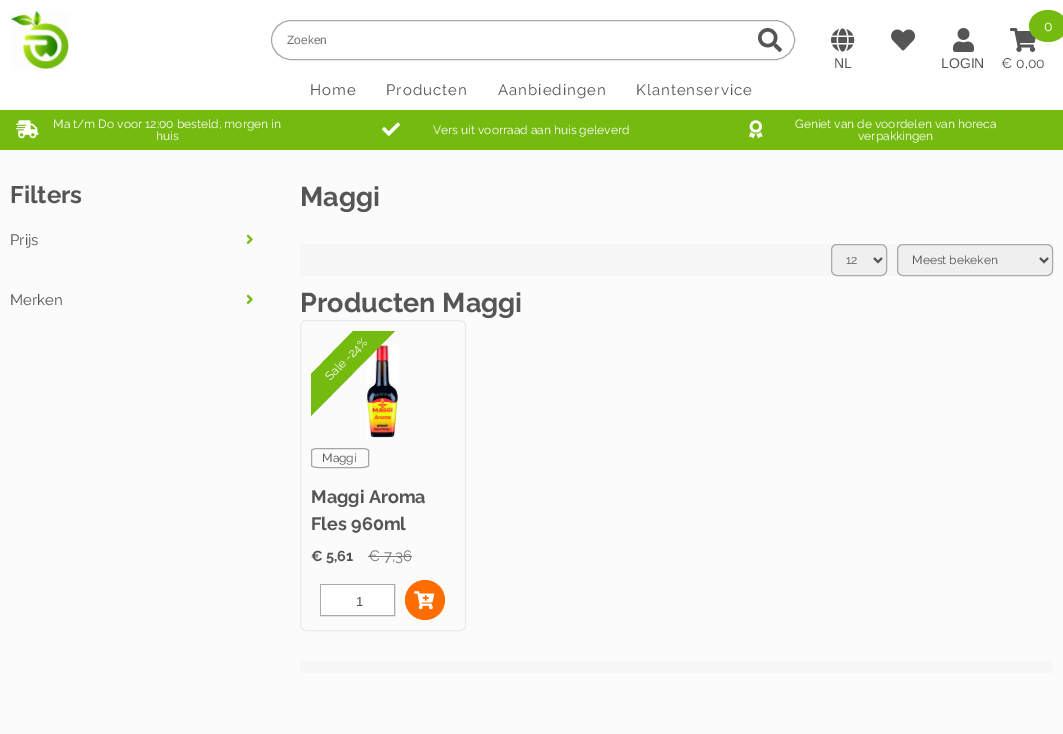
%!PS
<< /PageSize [1063 734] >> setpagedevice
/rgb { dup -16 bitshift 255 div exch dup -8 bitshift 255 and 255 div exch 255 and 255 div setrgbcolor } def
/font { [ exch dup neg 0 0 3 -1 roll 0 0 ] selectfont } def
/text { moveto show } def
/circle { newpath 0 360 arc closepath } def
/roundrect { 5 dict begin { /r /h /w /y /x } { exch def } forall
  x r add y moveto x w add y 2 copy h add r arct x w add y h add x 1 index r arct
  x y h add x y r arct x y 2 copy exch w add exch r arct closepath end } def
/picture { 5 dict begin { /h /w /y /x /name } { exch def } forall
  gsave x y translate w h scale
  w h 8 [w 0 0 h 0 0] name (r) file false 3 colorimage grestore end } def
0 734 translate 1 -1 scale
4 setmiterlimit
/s1 { /LiberationSans-Regular 12 font 16#777777 rgb } def
/s2 { /Raleway-Regular 14 font 16#FFFFFF rgb } def
/s3 { /Raleway-Regular 14 font 16#555555 rgb } def
/s4 { /LiberationSans-Regular 14 font 16#555555 rgb } def
/s5 { /Raleway-Regular 12 font 16#FFFFFF rgb } def
/s6 { /Raleway-Bold 24 font 16#555555 rgb } def
/s7 { /Raleway-Regular 15 font 16#555555 rgb } def
/s8 { /Raleway-Bold 27 font 16#555555 rgb } def
/s9 { /Raleway-Regular 12 font 16#555555 rgb } def
/s10 { /Raleway-Bold 18 font 16#555555 rgb } def
/s11 { /Raleway-Bold 14.5 font 16#555555 rgb } def
/s12 { /Raleway-Regular 15 font 16#777777 rgb } def
/s13 { /LiberationSans-Regular 13 font 16#555555 rgb } def
16#FBFBFB rgb
0 0 1063 734 rectfill
16#FFFFFF rgb
0 0 1063 110 rectfill
(pic1.raw) 11 11 58 59 picture
16#AAAAAA rgb
271.5 20.5 523 39 19.5 roundrect stroke
s1
(Zoeken) 287 44 text
(pic2.raw) 758 28 24 24 picture
(pic3.raw) 891 29 24 22 picture
(pic4.raw) 1010 28 26 24 picture
16#75BB0F rgb
1048 10 moveto 1058.5 10 1067 17 1067 26 curveto 1067 35 1058.5 42 1048 42 curveto 1037.5 42 1029 35 1029 26 curveto 1029 17 1037.5 10 1048 10 curveto closepath fill
s2
(0) 1044 31 text
s3
(€) 1001 68 text
(0,00) 1016 68 text
(pic5.raw) 831 28 24 24 picture
s4
(NL) 834 68 text
(pic6.raw) 953 28 21 24 picture
(LOGIN) 941 68 text
/Raleway-Regular 15 font
310 95 moveto 1 0 (Home) ashow
386 95 moveto 1 0 (Producten) ashow
498 95 moveto 1 0 (Aanbiedingen) ashow
636 95 moveto 1 0 (Klantenservice) ashow
16#75BB0F rgb
0 110 1063 40 rectfill
(pic7.raw) 16 120 23 19 picture
s5
(Ma t/m Do voor 12:00 besteld, morgen in) 53 128 text
(huis) 156 140 text
(pic8.raw) 382 122 18 14 picture
(Vers uit voorraad aan huis geleverd) 433 134 text
(pic9.raw) 749 120 14 19 picture
(Geniet van de voordelen van horeca) 795 128 text
(verpakkingen) 858 140 text
s6
(Filters) 10 203 text
s7
(Prijs) 10 245 text
(pic10.raw) 246 234 7 10 picture
(Merken) 10 305 text
(pic10.raw) 246 294 7 10 picture
s8
(Maggi) 300 206 text
16#F6F6F6 rgb
300 244 753 32 rectfill
16#EFEFEF rgb
831.5 244.5 55 31 5.5 roundrect gsave fill grestore
16#AAAAAA rgb
stroke
16#555555 rgb
2 setlinewidth
874 258 moveto 878 262 lineto 882 258 lineto stroke
s9
(12) 846 264 text
16#EFEFEF rgb
897.5 244.5 155 31 5.5 roundrect gsave fill grestore
16#AAAAAA rgb
1 setlinewidth
stroke
16#555555 rgb
2 setlinewidth
1040 258 moveto 1044 262 lineto 1048 258 lineto stroke
(Meest bekeken) 912 264 text
s8
(Producten Maggi) 300 312 text
16#EBEBEB rgb
1 setlinewidth
300.5 320.5 165 310 5.5 roundrect stroke
(pic11.raw) 367 345 32 93 picture
16#75BB0F rgb
311 374 moveto 353 331 lineto 395 331 lineto 311 416 lineto closepath fill
/Raleway-Regular 12 font
16#FFFFFF rgb
gsave 330 381 translate -45 rotate 0 0 moveto (Sale -24%) show grestore
16#A5A5A5 rgb
318.5 448.5 moveto 361.5 448.5 lineto 365.5 448.5 368.5 449.5 368.5 450.5 curveto 368.5 465.5 lineto 368.5 466.5 365.5 467.5 361.5 467.5 curveto 318.5 467.5 lineto 314.5 467.5 311.5 466.5 311.5 465.5 curveto 311.5 450.5 lineto 311.5 449.5 314.5 448.5 318.5 448.5 curveto closepath stroke
s9
(Maggi) 322 462 text
s10
(Maggi Aroma) 311 503 text
(Fles 960ml) 311 530 text
s11
(€ 5,61) 311 561 text
s12
(€ 7,36) 368 561 text
368 556 44 1 rectfill
16#AAAAAA rgb
320.5 584.5 74 31 rectstroke
16#FFFFFF rgb
321 585 73 30 rectfill
s13
(1) 356 606 text
16#FF6C00 rgb
425 600 20 circle fill
(pic12.raw) 414 591 21 19 picture
16#F6F6F6 rgb
300 661 753 12 rectfill
showpage
